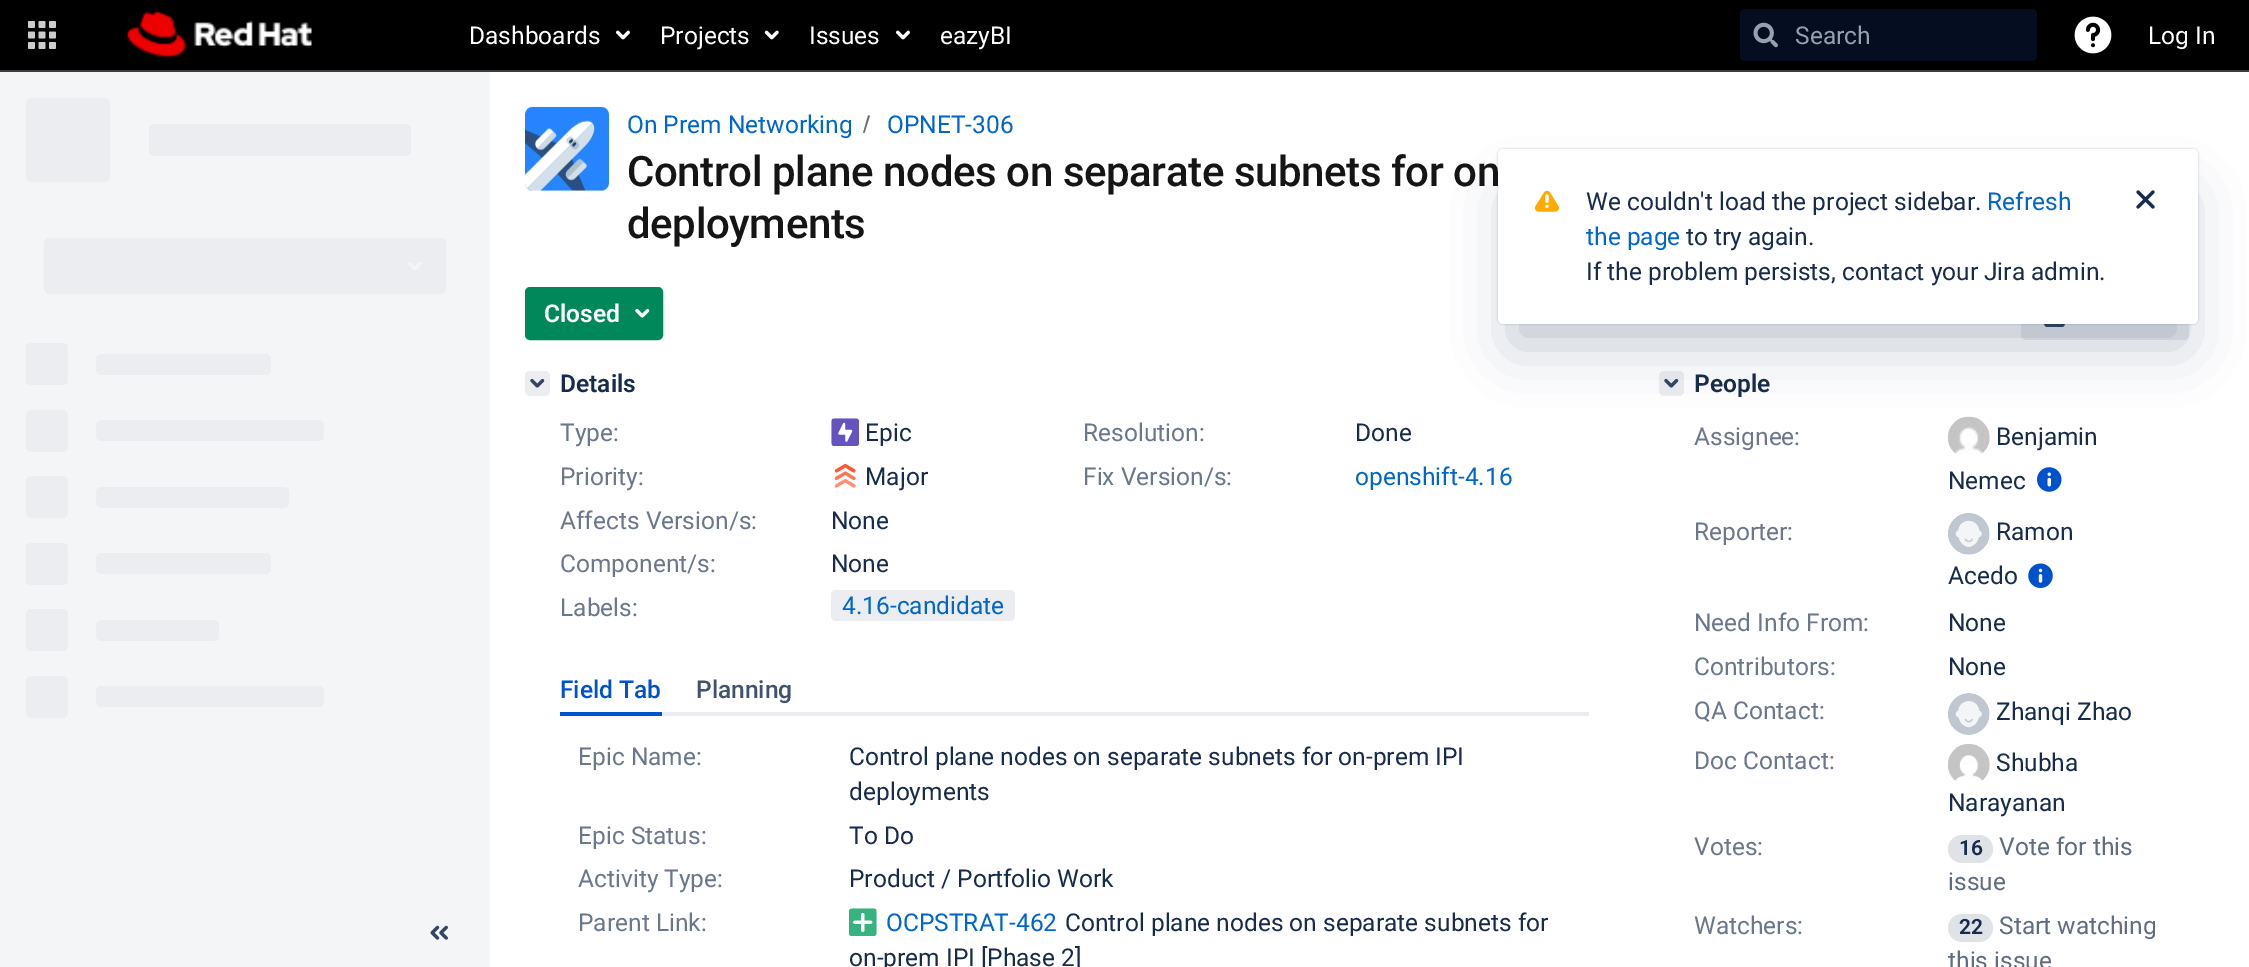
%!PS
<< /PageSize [2249 967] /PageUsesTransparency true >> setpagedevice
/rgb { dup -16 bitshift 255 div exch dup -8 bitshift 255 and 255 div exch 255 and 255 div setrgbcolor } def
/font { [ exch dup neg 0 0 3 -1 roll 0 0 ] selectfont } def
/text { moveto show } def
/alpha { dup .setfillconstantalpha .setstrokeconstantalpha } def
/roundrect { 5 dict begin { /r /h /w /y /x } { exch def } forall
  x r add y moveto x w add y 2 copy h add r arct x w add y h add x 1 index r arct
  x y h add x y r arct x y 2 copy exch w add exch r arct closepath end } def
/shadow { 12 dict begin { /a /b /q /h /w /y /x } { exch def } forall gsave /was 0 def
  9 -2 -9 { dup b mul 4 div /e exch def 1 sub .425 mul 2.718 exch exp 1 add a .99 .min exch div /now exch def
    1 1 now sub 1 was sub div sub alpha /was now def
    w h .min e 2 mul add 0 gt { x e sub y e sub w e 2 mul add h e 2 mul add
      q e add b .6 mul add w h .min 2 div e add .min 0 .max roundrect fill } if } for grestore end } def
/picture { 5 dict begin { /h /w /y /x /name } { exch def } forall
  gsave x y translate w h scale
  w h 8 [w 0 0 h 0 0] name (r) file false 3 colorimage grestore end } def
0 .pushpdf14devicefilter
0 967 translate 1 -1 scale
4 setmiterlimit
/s1 { /Roboto-Regular 24.5 font 16#FFFFFF rgb } def
/s2 { /Roboto-Regular 24.5 font 16#97A0AF rgb } def
/s3 { /Roboto-Regular 24.5 font 16#0066CC rgb } def
/s4 { /Roboto-SemiBold 24.5 font 16#FFFFFF rgb } def
/s5 { /Roboto-SemiBold 24.5 font 16#172B4D rgb } def
/s6 { /Roboto-Regular 24.5 font 16#6B778C rgb } def
/s7 { /Roboto-Regular 24.5 font 16#172B4D rgb } def
/s8 { /Roboto-Medium 24.5 font 16#0052CC rgb } def
/s9 { /Roboto-Medium 24.5 font 16#42526E rgb } def
/s10 { /Roboto-SemiBold 21 font 16#172B4D rgb } def
/s11 { /Roboto-Regular 24.5 font 16#5E6C84 rgb } def
16#FFFFFF rgb
0 0 2249 967 rectfill
16#000000 rgb
0 0 2249 70 rectfill
16#3C3F42 rgb
0 70 2249 2 rectfill
(pic1.raw) 28 21 28 28 picture
(pic2.raw) 127 11 185 46 picture
s1
(Dashboards) 469 44 text
(pic3.raw) 616 30 14 10 picture
(Projects) 660 44 text
(pic4.raw) 764 30 15 10 picture
(Issues) 809 44 text
(pic3.raw) 896 30 14 10 picture
(eazyBI) 940 44 text
16#040E20 rgb
1740 9 297 52 5 roundrect fill
(pic5.raw) 1753 22 25 26 picture
s2
(Search) 1795 44 text
(pic6.raw) 2074 16 38 38 picture
s1
(Log In) 2148 44 text
16#F4F5F7 rgb
0 72 490 895 rectfill
(pic7.raw) 26 98 420 620 picture
(pic8.raw) 430 925 18 15 picture
(pic9.raw) 525 106 84 85 picture
s3
(On Prem Networking) 627 133 text
16#707070 rgb
864.5 133 moveto 870 115.5 lineto 868 115.5 lineto 863 133 lineto closepath fill
s3
(OPNET-306) 887 133 text
/Roboto-Medium 42 font
16#151515 rgb
627 186 moveto -0.4 0 (Control plane nodes on separate subnets for on) ashow
627 238 moveto -0.4 0 (deployments) ashow
16#00875A rgb
526 288 136 51 4 roundrect gsave fill grestore
2 setlinewidth
stroke
s4
(Closed) 544 322 text
(pic10.raw) 635 308 15 10 picture
16#EBEDF0 rgb
2021 287 168 53 5 roundrect fill
(pic11.raw) 2044 324 21 3 picture
525 371 25 25 5 roundrect fill
(pic12.raw) 530 378 15 10 picture
s5
(Details) 560 392 text
s6
(Type:) 560 441 text
(pic13.raw) 831 418 28 28 picture
s7
(Epic) 865 441 text
s6
(Resolution:) 1083 441 text
s7
(Done) 1355 441 text
s6
(Priority:) 560 485 text
(pic14.raw) 834 463 22 25 picture
s7
(Major) 865 485 text
s6
(Fix Version/s:) 1083 485 text
s3
(openshift-4.16) 1355 485 text
s6
(Affects Version/s:) 560 529 text
s7
(None) 831 529 text
s6
(Component/s:) 560 572 text
s7
(None) 831 572 text
s6
(Labels:) 560 616 text
16#EBEDF0 rgb
831 590 184 31 5 roundrect fill
s3
(4.16-candidate) 842 614 text
s8
(Field Tab) 560 698 text
560 712 102 4 rectfill
s9
(Planning) 696 698 text
16#EBECF1 rgb
662 712 927 4 rectfill
s6
(Epic Name:) 578 765 text
s7
(Control plane nodes on separate subnets for on-prem IPI) 849 765 text
(deployments) 849 800 text
s6
(Epic Status:) 578 844 text
s7
(To Do) 849 844 text
s6
(Activity Type:) 578 887 text
s7
(Product / Portfolio Work) 849 887 text
s6
(Parent Link:) 578 931 text
(pic15.raw) 849 908 28 28 picture
s3
(OCPSTRAT-462) 886 931 text
s7
(Control plane nodes on separate subnets for) 1065 931 text
(on-prem IPI [Phase 2]) 849 966 text
16#EBEDF0 rgb
1659 371 25 25 5 roundrect fill
(pic12.raw) 1664 378 15 10 picture
s5
(People) 1694 392 text
s6
(Assignee:) 1694 445 text
(pic16.raw) 1948 416 42 39 picture
s7
(Benjamin) 1996 445 text
(Nemec) 1948 489 text
(pic17.raw) 2037 467 25 25 picture
s6
(Reporter:) 1694 540 text
(pic18.raw) 1948 513 42 42 picture
s7
(Ramon) 1996 540 text
(Acedo) 1948 584 text
(pic19.raw) 2028 563 25 25 picture
s6
(Need Info From:) 1694 631 text
s7
(None) 1948 631 text
s6
(Contributors:) 1694 675 text
s7
(None) 1948 675 text
s6
(QA Contact:) 1694 719 text
(pic20.raw) 1948 693 42 42 picture
s7
(Zhanqi Zhao) 1996 720 text
s6
(Doc Contact:) 1694 769 text
(pic21.raw) 1948 744 42 37 picture
s7
(Shubha) 1996 771 text
(Narayanan) 1948 811 text
s6
(Votes:) 1694 855 text
16#DFE2E6 rgb
1948 835 45 28 14 roundrect fill
s10
(16) 1959 855 text
s11
(Vote for this) 1999 855 text
(issue) 1948 890 text
s6
(Watchers:) 1694 934 text
16#DFE2E6 rgb
1948 914 45 28 14 roundrect fill
s10
(22) 1959 934 text
s11
(Start watching) 1999 934 text
(this issue) 1948 969 text
16#091E42 rgb
1498 149 700 175 5 1 0.25 shadow
1512 198 672 147 0 28 0.25 shadow
16#FFFFFF rgb
1498 149 700 175 5 roundrect fill
(pic22.raw) 1535 190 24 22 picture
s7
(We couldn't load the project sidebar.) 1586 210 text
s3
(Refresh) 1987 210 text
(pic23.raw) 2136 190 19 19 picture
(the page) 1586 245 text
s7
(to try again.) 1686 245 text
(If the problem persists, contact your Jira admin.) 1586 280 text
.poppdf14devicefilter showpage
